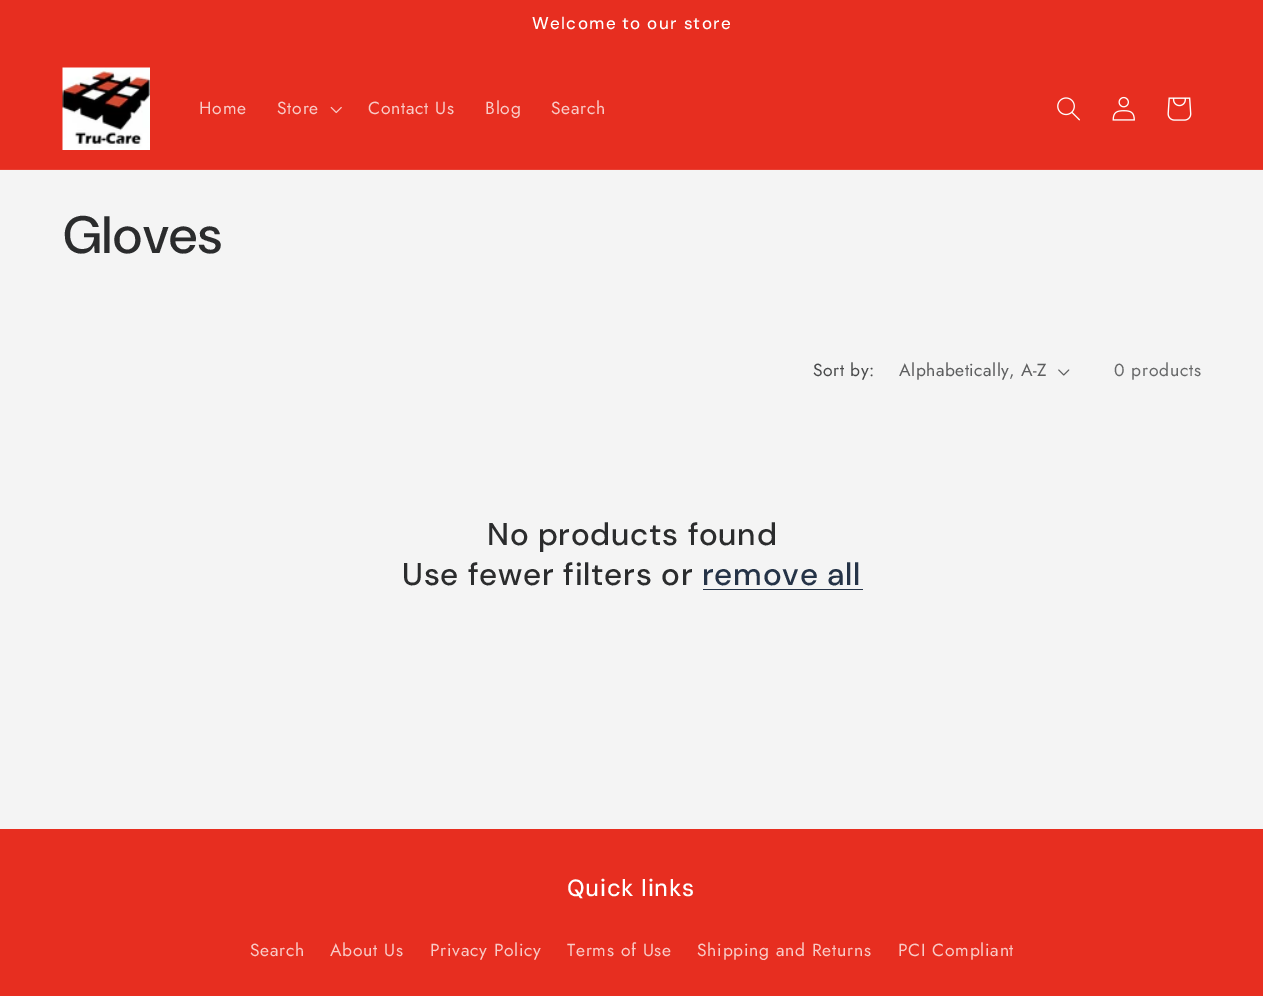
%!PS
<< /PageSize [1263 996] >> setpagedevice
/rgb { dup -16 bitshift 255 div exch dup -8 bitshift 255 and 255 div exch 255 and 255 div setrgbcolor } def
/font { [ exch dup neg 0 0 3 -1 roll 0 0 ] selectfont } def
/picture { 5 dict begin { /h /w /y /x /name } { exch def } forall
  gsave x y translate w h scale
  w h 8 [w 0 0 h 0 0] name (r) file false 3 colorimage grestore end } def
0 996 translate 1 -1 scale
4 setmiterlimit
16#F4F4F4 rgb
0 0 1263 996 rectfill
16#E72E20 rgb
0 0 1263 169 rectfill
/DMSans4-Medium 17 font
16#FFFFFF rgb
532 29 moveto 1.25 0 (Welcome to our store) ashow
16#E93F32 rgb
0 169 1263 1 rectfill
(pic1.raw) 62 67 88 83 picture
/Jost-Regular 17.5 font
16#F9CBC7 rgb
199 114 moveto 0.75 0 (Home) ashow
277 114 moveto 0.75 0 (Store) ashow
(pic2.raw) 330 106 12 8 picture
368 114 moveto 0.75 0 (Contact Us) ashow
485 114 moveto 0.75 0 (Blog) ashow
551 114 moveto 0.75 0 (Search) ashow
(pic3.raw) 1057 97 23 24 picture
(pic4.raw) 1112 96 23 25 picture
(pic5.raw) 1167 97 25 24 picture
/DMSans-Medium 52.5 font
16#2B2C2D rgb
63 253 moveto 0.75 0 (Gloves) ashow
/Jost-Regular 17.5 font
16#494A4B rgb
813 376 moveto 0.5 0 (Sort by:) ashow
16#5D5E5F rgb
899 376 moveto 0.5 0 (Alphabetically, A-Z) ashow
(pic6.raw) 1058 369 12 7 picture
16#676869 rgb
1114 376 moveto 0.75 0 (0 products) ashow
/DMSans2-Medium 31.5 font
16#2B2C2D rgb
487 545 moveto 0.75 0 (No products found) ashow
402 585 moveto 0.75 0 (Use fewer filters or) ashow
16#253347 rgb
702 585 moveto 0.75 0 (remove all) ashow
703 589 160 1 rectfill
16#E72E20 rgb
0 829 1263 167 rectfill
/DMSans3-Medium 23.5 font
16#FFFFFF rgb
567 896 moveto 0.75 0 (Quick links) ashow
/Jost-Regular 17.5 font
16#F9CBC7 rgb
250 956 moveto 0.75 0 (Search) ashow
330 956 moveto 0.75 0 (About Us) ashow
430 956 moveto 0.75 0 (Privacy Policy) ashow
567 956 moveto 0.75 0 (Terms of Use) ashow
697 956 moveto 0.75 0 (Shipping and Returns) ashow
898 956 moveto 0.75 0 (PCI Compliant) ashow
showpage
